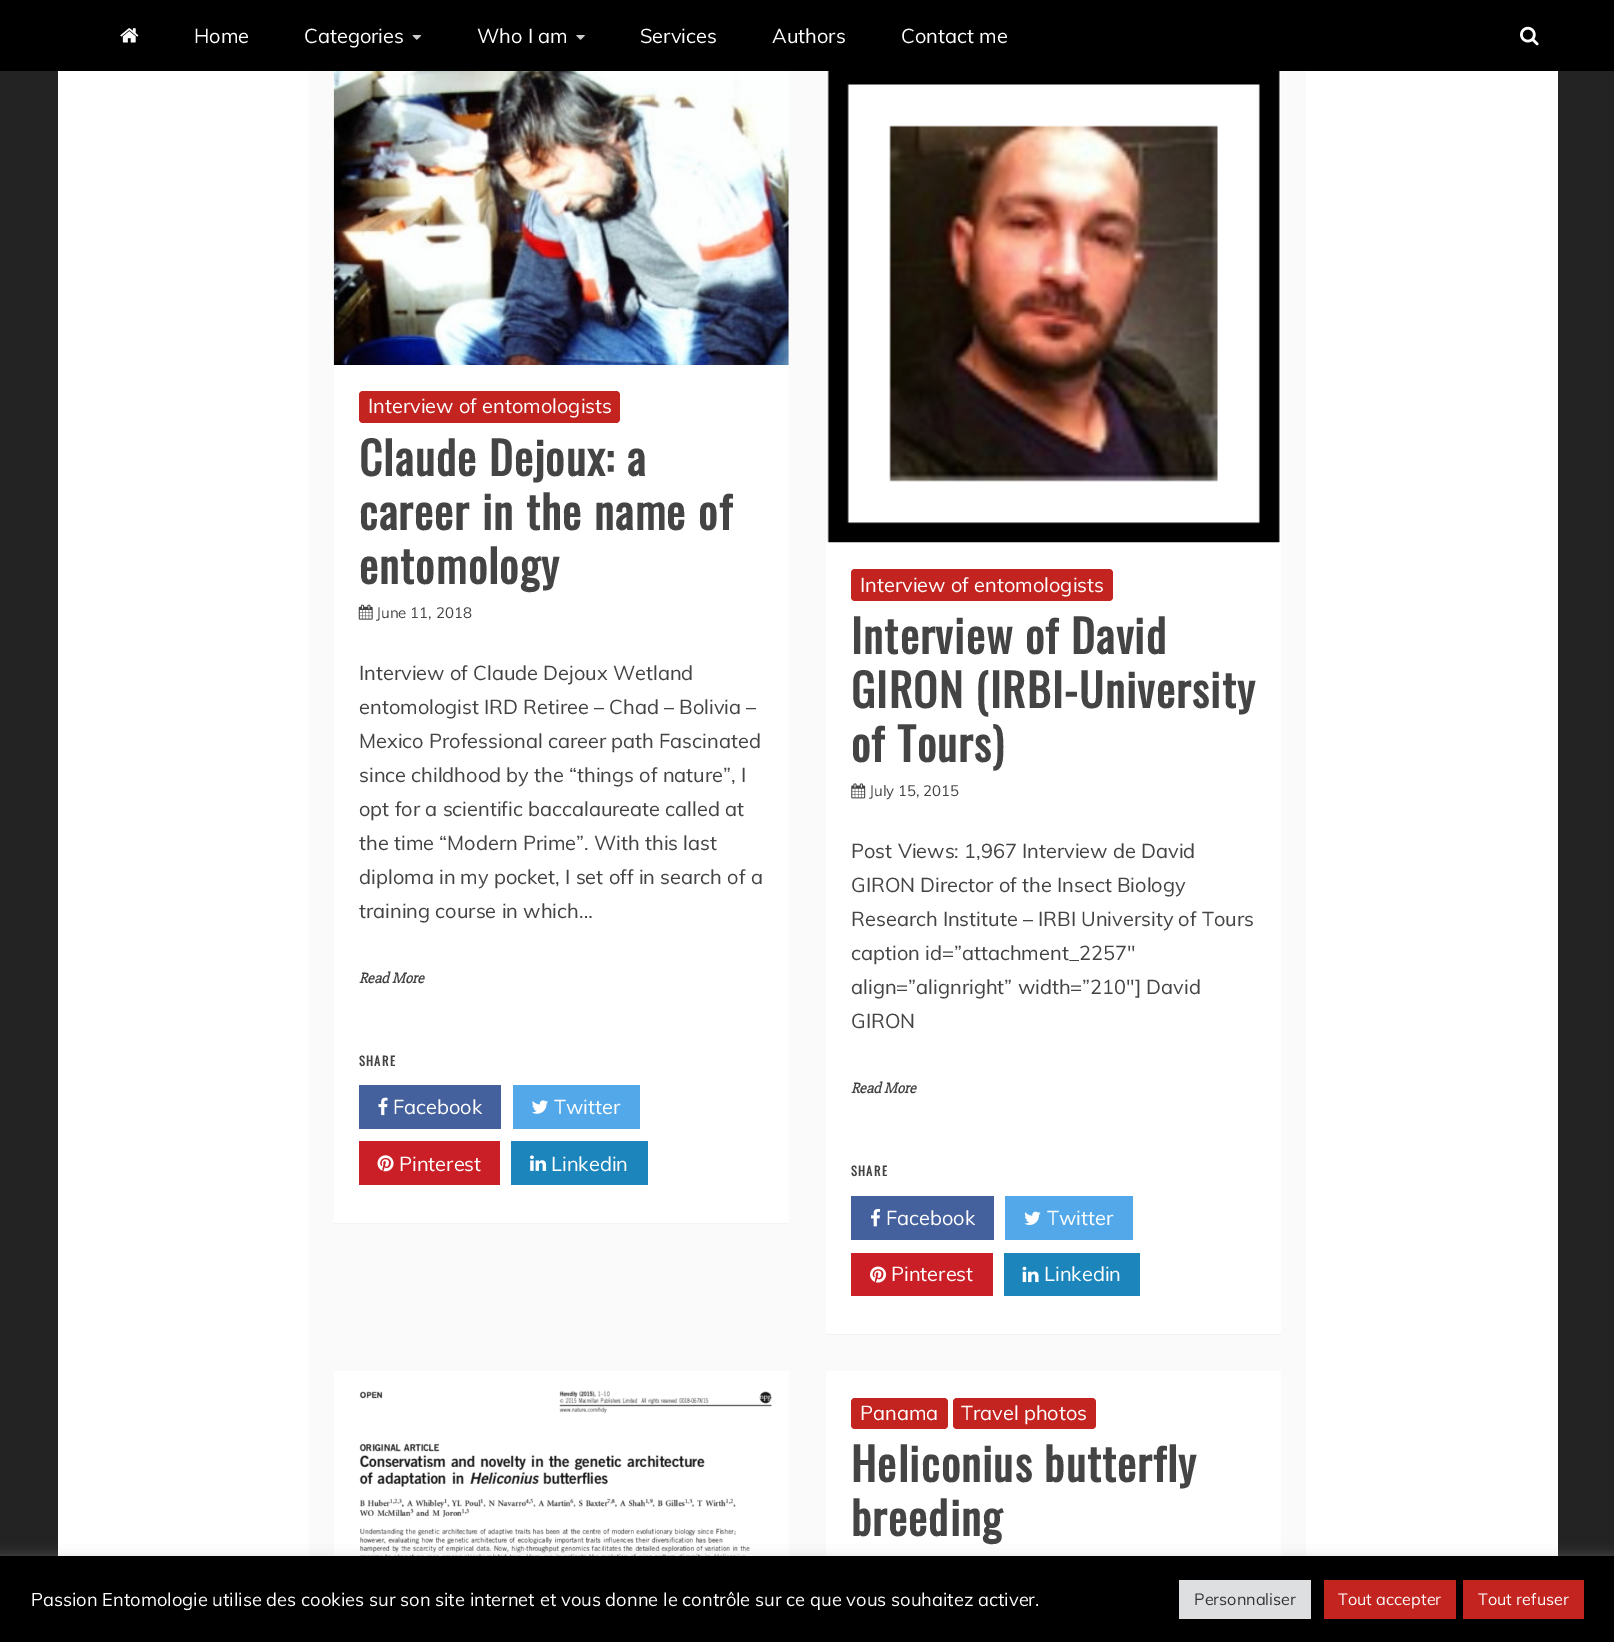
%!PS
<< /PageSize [1614 1642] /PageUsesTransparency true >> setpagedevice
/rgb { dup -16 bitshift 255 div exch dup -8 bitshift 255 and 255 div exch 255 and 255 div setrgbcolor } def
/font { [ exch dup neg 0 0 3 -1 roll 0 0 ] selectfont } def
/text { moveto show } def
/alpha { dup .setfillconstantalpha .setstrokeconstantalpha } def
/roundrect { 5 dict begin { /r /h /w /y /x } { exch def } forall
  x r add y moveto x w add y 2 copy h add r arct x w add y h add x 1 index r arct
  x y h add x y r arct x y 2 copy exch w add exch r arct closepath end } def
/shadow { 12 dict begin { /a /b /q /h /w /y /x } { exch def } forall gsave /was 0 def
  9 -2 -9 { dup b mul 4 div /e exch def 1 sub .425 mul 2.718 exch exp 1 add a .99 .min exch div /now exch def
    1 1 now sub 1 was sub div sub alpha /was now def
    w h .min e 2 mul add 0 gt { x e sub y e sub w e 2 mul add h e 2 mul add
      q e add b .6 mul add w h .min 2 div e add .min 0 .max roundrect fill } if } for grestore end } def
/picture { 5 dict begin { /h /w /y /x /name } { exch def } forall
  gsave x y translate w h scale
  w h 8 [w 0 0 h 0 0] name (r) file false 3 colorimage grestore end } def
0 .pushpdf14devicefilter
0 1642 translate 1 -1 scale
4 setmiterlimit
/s1 { /Muli-Regular 20 font 16#FFFFFF rgb } def
/s2 { /Muli-Regular 15 font 16#444444 rgb } def
/s3 { /Muli-Regular 20 font 16#444444 rgb } def
/s4 { /Slabo27px-BoldItalic 15 font 16#444444 rgb } def
/s5 { /Muli-Regular 18.33 font 16#FFFFFF rgb } def
/s6 { /Muli-Regular 16.25 font 16#333333 rgb } def
/s7 { /Muli-Regular 16.25 font 16#FFFFFF rgb } def
16#232323 rgb
0 0 1614 1642 rectfill
16#000000 rgb
0 0 1614 71 rectfill
(pic1.raw) 120 28 19 15 picture
s1
(Home) 194 43 text
(Categories) 304 43 text
(pic2.raw) 412 35 9 5 picture
(Who I am) 477 43 text
(pic3.raw) 576 35 9 5 picture
(Services) 640 43 text
(Authors) 772 43 text
(Contact me) 901 43 text
(pic4.raw) 1520 26 19 20 picture
58 71 1500 1485 rectfill
16#FAFAFA rgb
309 71 997 1485 rectfill
16#F3F3F3 rgb
334 1222 moveto 334 1224 lineto 789 1224 lineto 789 64 lineto 789 1222 lineto closepath fill
16#FFFFFF rgb
334 71 455 1152 rectfill
(pic5.raw) 333 71 456 294 picture
16#C32420 rgb
359 391 261 32 4 roundrect fill
s1
(Interview of entomologists) 368 413 text
/Oswald-Bold 45 font
16#444444 rgb
359 476 moveto 1.25 0 (Claude Dejoux: a) ashow
359 530 moveto 1.25 0 (career in the name of) ashow
359 584 moveto 1.25 0 (entomology) ashow
(pic6.raw) 358 604 15 16 picture
s2
(June 11, 2018) 376 618 text
s3
(Interview of Claude Dejoux Wetland) 359 680 text
(entomologist IRD Retiree – Chad – Bolivia –) 359 714 text
(Mexico Professional career path Fascinated) 359 748 text
(since childhood by the “things of nature”, I) 359 782 text
(opt for a scientific baccalaureate called at) 359 816 text
(the time “Modern Prime”. With this last) 359 850 text
(diploma in my pocket, I set off in search of a) 359 884 text
(training course in which…) 359 918 text
s4
(Read More) 359 983 text
/Oswald-Bold 12.5 font
359 1066 moveto 1.25 0 (SHARE) ashow
16#45619D rgb
359 1085 142 44 rectfill
(pic7.raw) 378 1097 10 19 picture
s1
(Facebook) 393 1114 text
16#53A8EA rgb
513 1085 127 44 rectfill
(pic8.raw) 532 1100 16 14 picture
s1
(Twitter) 554 1114 text
16#CA1F26 rgb
359 1141 141 44 rectfill
(pic9.raw) 377 1155 17 17 picture
s1
(Pinterest) 399 1171 text
16#1B85BC rgb
511 1141 137 44 rectfill
(pic10.raw) 530 1155 17 16 picture
s1
(Linkedin) 551 1171 text
16#F3F3F3 rgb
826 64 moveto 826 1335 lineto 1281 1335 lineto 1281 1334 lineto 826 1334 lineto closepath fill
16#FFFFFF rgb
826 71 455 1263 rectfill
(pic11.raw) 827 71 453 472 picture
16#C32420 rgb
851 569 262 32 4 roundrect fill
s1
(Interview of entomologists) 860 592 text
/Oswald-Bold 45 font
16#444444 rgb
851 654 moveto 1.25 0 (Interview of David) ashow
851 708 moveto 1.25 0 (GIRON \(IRBI-University) ashow
851 762 moveto 1.25 0 (of Tours\)) ashow
(pic12.raw) 851 783 15 16 picture
s2
(July 15, 2015) 869 796 text
s3
(Post Views: 1,967 Interview de David) 851 858 text
(GIRON Director of the Insect Biology) 851 892 text
(Research Institute – IRBI University of Tours) 851 926 text
(caption id=”attachment_2257″) 851 960 text
(align=”alignright” width=”210″] David) 851 994 text
(GIRON) 851 1028 text
s4
(Read More) 851 1093 text
/Oswald-Bold 12.5 font
851 1176 moveto 1.25 0 (SHARE) ashow
16#45619D rgb
851 1196 143 44 rectfill
(pic13.raw) 871 1208 10 19 picture
s1
(Facebook) 886 1225 text
16#53A8EA rgb
1005 1196 128 44 rectfill
(pic14.raw) 1024 1211 17 14 picture
s1
(Twitter) 1047 1225 text
16#CA1F26 rgb
851 1253 142 43 rectfill
(pic15.raw) 870 1266 17 17 picture
s1
(Pinterest) 891 1281 text
16#1B85BC rgb
1004 1253 136 43 rectfill
(pic16.raw) 1022 1266 17 17 picture
s1
(Linkedin) 1044 1281 text
334 1371 455 185 rectfill
(pic17.raw) 359 1390 413 166 picture
826 1371 455 185 rectfill
16#C32420 rgb
851 1398 97 31 4 roundrect fill
s1
(Panama) 860 1420 text
16#C32420 rgb
953 1398 143 31 4 roundrect fill
s1
(Travel photos) 961 1420 text
/Oswald-Bold 45 font
16#444444 rgb
851 1482 moveto 1.25 0 (Heliconius butterfly) ashow
851 1536 moveto 1.25 0 (breeding) ashow
16#ACABAB rgb
0 1555 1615 86 0 6 0.3 shadow
16#000000 rgb
0 1556 1614 86 rectfill
s5
(Passion Entomologie utilise des cookies sur son site internet et vous donne le contrôle sur ce que vous souhaitez activer.) 31 1606 text
16#DEDFE0 rgb
1179 1580 132 39 rectfill
s6
(Personnaliser) 1194 1605 text
16#C32420 rgb
1324 1580 132 39 rectfill
s7
(Tout accepter) 1338 1605 text
16#C32420 rgb
1463 1580 121 39 rectfill
s7
(Tout refuser) 1478 1605 text
.poppdf14devicefilter showpage
